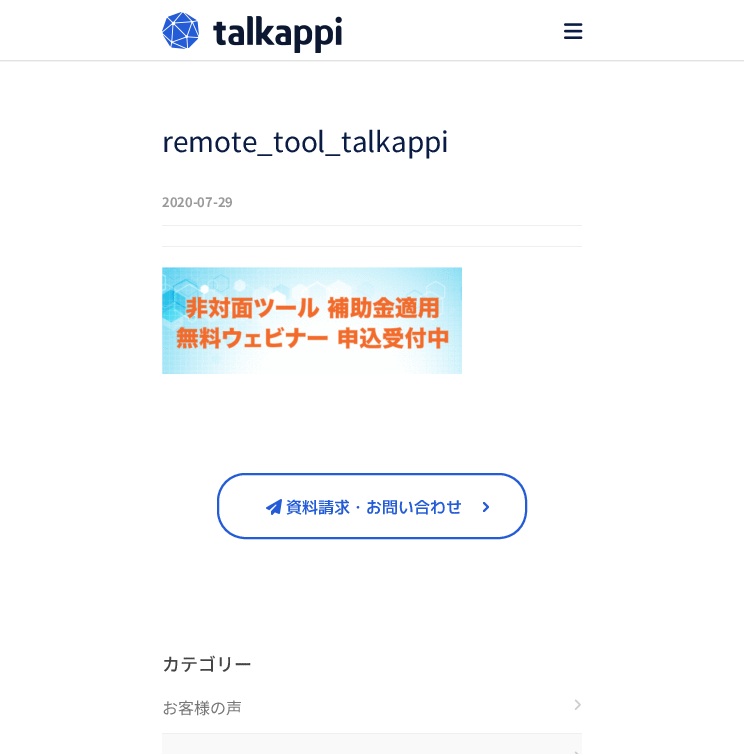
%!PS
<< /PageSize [744 754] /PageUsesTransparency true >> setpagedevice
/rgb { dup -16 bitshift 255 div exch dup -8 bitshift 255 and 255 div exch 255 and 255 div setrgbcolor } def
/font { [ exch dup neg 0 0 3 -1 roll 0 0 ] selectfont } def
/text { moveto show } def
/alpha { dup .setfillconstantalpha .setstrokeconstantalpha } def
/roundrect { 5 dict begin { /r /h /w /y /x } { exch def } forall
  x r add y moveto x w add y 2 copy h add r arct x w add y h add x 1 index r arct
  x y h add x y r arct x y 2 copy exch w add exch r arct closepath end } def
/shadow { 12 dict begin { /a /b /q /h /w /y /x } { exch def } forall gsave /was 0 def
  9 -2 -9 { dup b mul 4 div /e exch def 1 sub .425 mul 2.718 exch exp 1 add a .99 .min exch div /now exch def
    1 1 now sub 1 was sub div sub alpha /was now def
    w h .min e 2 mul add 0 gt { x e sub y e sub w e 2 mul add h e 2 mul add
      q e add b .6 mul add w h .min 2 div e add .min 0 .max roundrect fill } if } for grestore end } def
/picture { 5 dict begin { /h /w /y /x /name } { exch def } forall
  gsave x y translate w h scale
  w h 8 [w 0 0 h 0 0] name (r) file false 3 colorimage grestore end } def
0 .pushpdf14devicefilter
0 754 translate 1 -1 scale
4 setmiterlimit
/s1 { /NotoSansJP-Regular 28 font 16#0A1C44 rgb } def
/s2 { /NotoSansJP-Bold 13 font 16#999999 rgb } def
/s3 { /Murecho-Medium 16 font 16#245BD6 rgb } def
/s4 { /NotoSansJP-Medium 18 font 16#444444 rgb } def
/s5 { /NotoSansJP-Regular 16 font 16#777777 rgb } def
16#FFFFFF rgb
0 0 744 754 rectfill
gsave
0 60 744 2 rectclip
16#000000 rgb
-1 -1 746 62 0 1 0.16 shadow
grestore
(pic1.raw) 162 12 180 41 picture
(pic2.raw) 564 23 19 16 picture
s1
(remote_tool_talkappi) 162 152 text
16#EFEFEF rgb
162 225 420 1 rectfill
s2
(2020-07-29) 162 207 text
16#EFEFEF rgb
162 246 420 1 rectfill
(pic3.raw) 162 267 300 107 picture
16#245BD6 rgb
2 setlinewidth
218 474 308 64 27 roundrect stroke
(pic4.raw) 266 499 16 16 picture
s3
(資料請求・お問い合わせ) 286 513 text
1 setlinecap
1 setlinejoin
484 503 moveto 488 507 lineto 484 511 lineto stroke
s4
(カテゴリー) 162 671 text
s5
(お客様の声) 162 714 text
(pic5.raw) 574 699 7 11 picture
16#EFEFEF rgb
162 733 420 1 rectfill
16#F9F9F9 rgb
162 734 420 20 rectfill
(pic6.raw) 574 751 5 3 picture
.poppdf14devicefilter showpage
